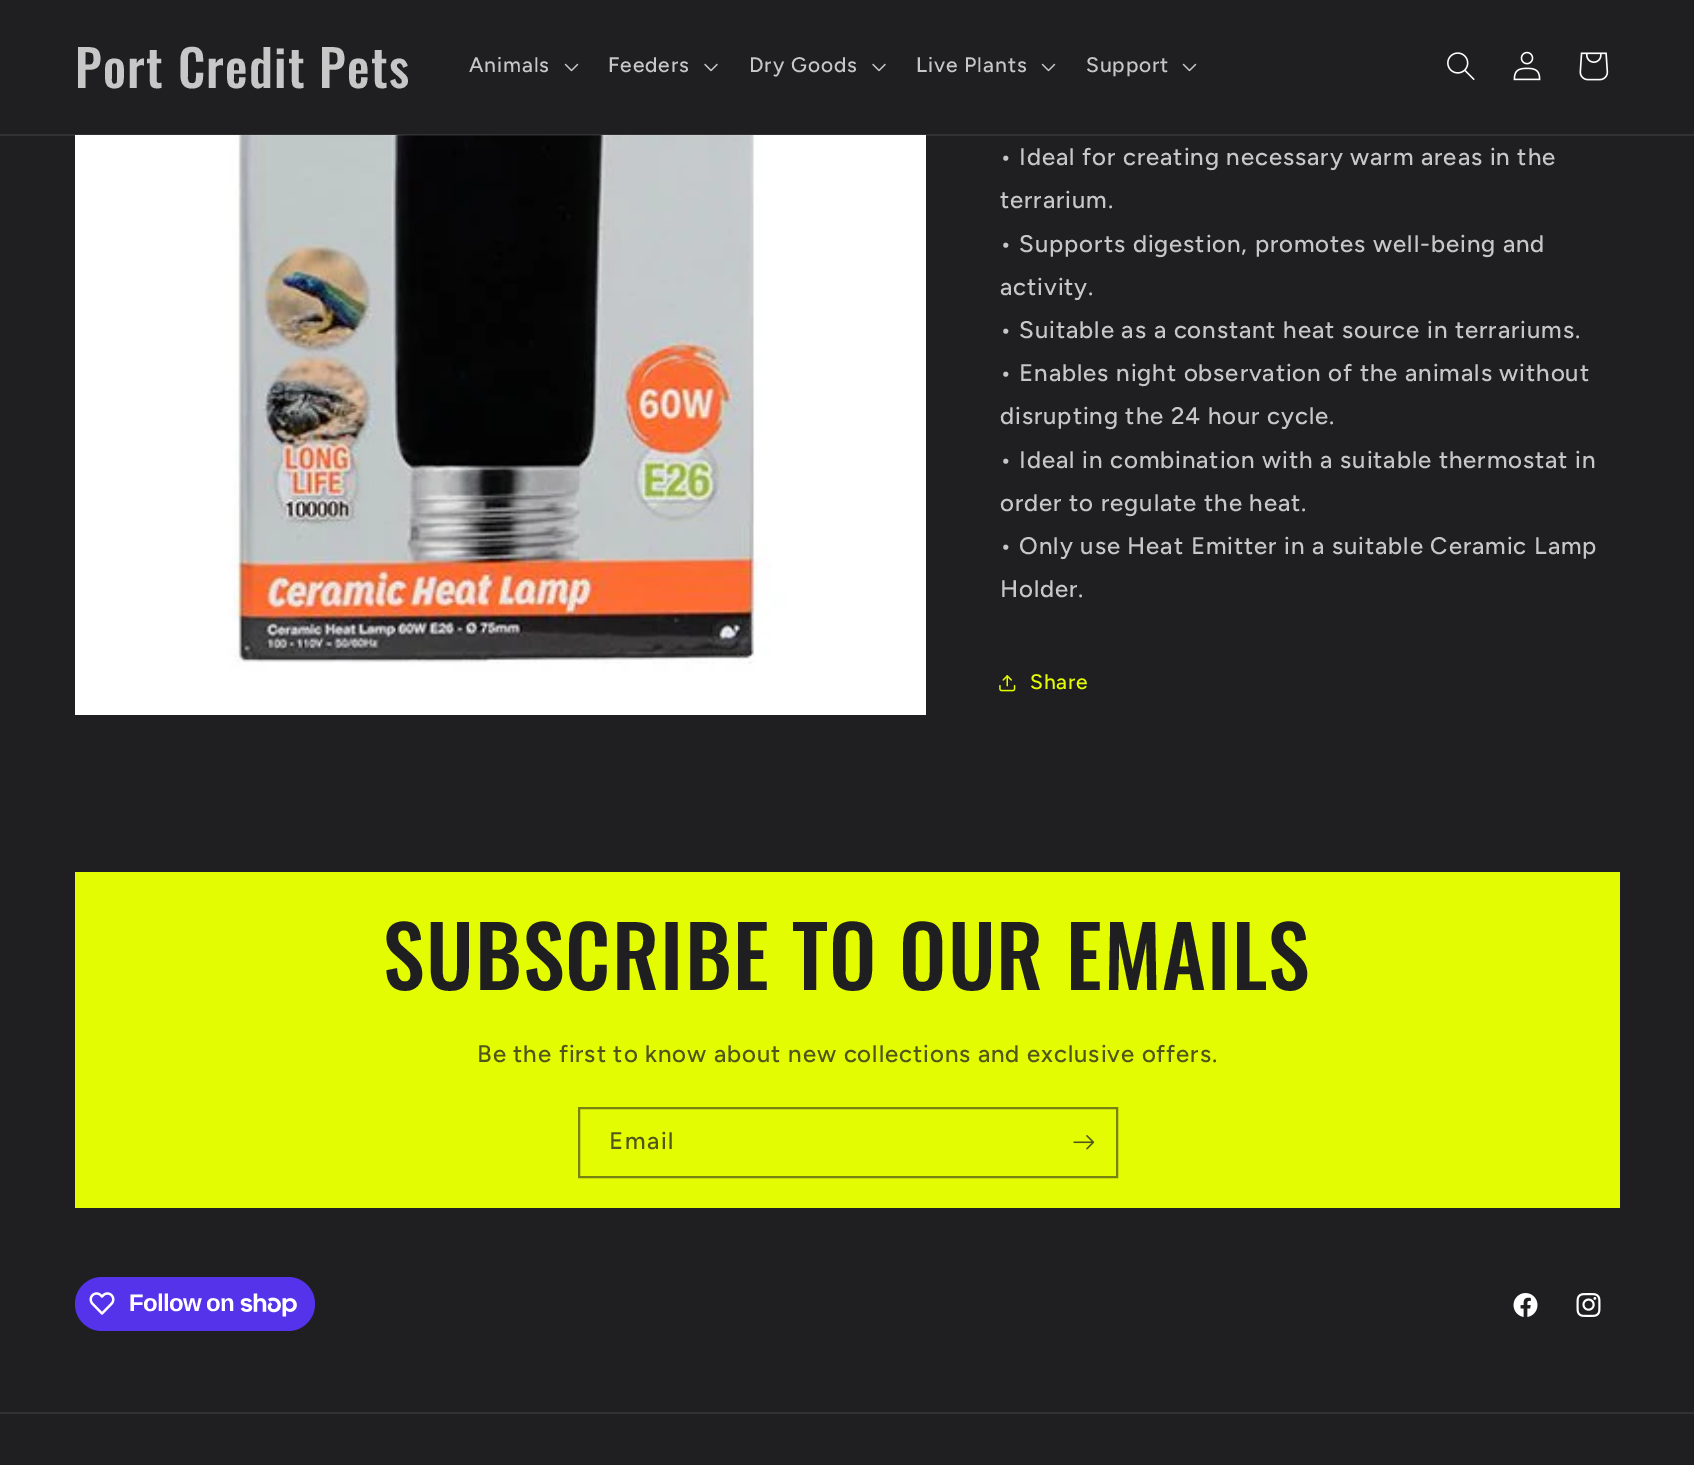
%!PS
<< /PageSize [1694 1465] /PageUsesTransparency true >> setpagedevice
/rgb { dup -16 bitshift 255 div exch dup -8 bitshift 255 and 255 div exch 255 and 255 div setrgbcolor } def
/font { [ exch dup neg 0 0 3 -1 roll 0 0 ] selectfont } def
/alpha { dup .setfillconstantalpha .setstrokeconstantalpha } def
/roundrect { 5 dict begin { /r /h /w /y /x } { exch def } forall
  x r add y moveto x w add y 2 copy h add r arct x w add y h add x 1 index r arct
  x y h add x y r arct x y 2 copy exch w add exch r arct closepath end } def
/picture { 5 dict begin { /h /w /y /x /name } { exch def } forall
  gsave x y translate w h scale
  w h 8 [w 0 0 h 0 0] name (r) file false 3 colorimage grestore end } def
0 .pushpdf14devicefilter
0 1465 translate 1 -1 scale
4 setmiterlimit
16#1F1F21 rgb
0 0 1694 1465 rectfill
(pic6.raw) 75 135 851 580 picture
0.08 alpha
16#FFFFFF rgb
0 134 1694 2 rectfill
/Oswald-Medium 50.5 font
1 alpha
16#C7C7C8 rgb
75 88 moveto 1.25 0 (Port Credit Pets) ashow
/Figtree-Medium 21 font
469 72 moveto 0.9 0 (Animals) ashow
(pic1.raw) 564 63 15 9 picture
608 72 moveto 0.9 0 (Feeders) ashow
(pic2.raw) 704 63 14 9 picture
749 72 moveto 0.9 0 (Dry Goods) ashow
(pic2.raw) 872 63 14 9 picture
916 72 moveto 0.9 0 (Live Plants) ashow
(pic1.raw) 1041 63 15 9 picture
1086 72 moveto 0.9 0 (Support) ashow
(pic1.raw) 1182 63 15 9 picture
(pic3.raw) 1447 52 28 28 picture
(pic4.raw) 1513 51 28 30 picture
(pic5.raw) 1579 52 30 29 picture
/Figtree-Medium 24 font
1000 165 moveto 0.9 0 (• Ideal for creating necessary warm areas in the) ashow
1000 208 moveto 0.9 0 (terrarium.) ashow
1000 252 moveto 0.9 0 (• Supports digestion, promotes well-being and) ashow
1000 295 moveto 0.9 0 (activity.) ashow
1000 338 moveto 0.9 0 (• Suitable as a constant heat source in terrariums.) ashow
1000 381 moveto 0.9 0 (• Enables night observation of the animals without) ashow
1000 424 moveto 0.9 0 (disrupting the 24 hour cycle.) ashow
1000 468 moveto 0.9 0 (• Ideal in combination with a suitable thermostat in) ashow
1000 511 moveto 0.9 0 (order to regulate the heat.) ashow
1000 554 moveto 0.9 0 (• Only use Heat Emitter in a suitable Ceramic Lamp) ashow
1000 597 moveto 0.9 0 (Holder.) ashow
(pic7.raw) 999 675 17 17 picture
/Figtree-Medium 21 font
16#E3FC02 rgb
1030 689 moveto 0.9 0 (Share) ashow
75 872 1545 336 rectfill
/Oswald-Medium 84 font
16#1F1F21 rgb
383 990 moveto 1.25 0 (SUBSCRIBE TO OUR EMAILS) ashow
/Figtree-Medium 24 font
16#505619 rgb
477 1062 moveto 0.9 0 (Be the first to know about new collections and exclusive offers.) ashow
16#778213 rgb
2 setlinewidth
579 1108 538 69 rectstroke
16#505619 rgb
609 1149 moveto 1.5 0 (Email) ashow
(pic8.raw) 1073 1135 22 15 picture
16#5433EB rgb
75 1277 240 54 27 roundrect fill
(pic9.raw) 89 1292 26 23 picture
/LiberationSans-Bold 24 font
16#FFFFFF rgb
129 1311 moveto -0.75 0 (Follow on) ashow
(pic10.raw) 240 1293 57 24 picture
(pic11.raw) 1513 1293 25 24 picture
(pic12.raw) 1576 1293 25 24 picture
16#313133 rgb
0 1412 1694 2 rectfill
.poppdf14devicefilter showpage
